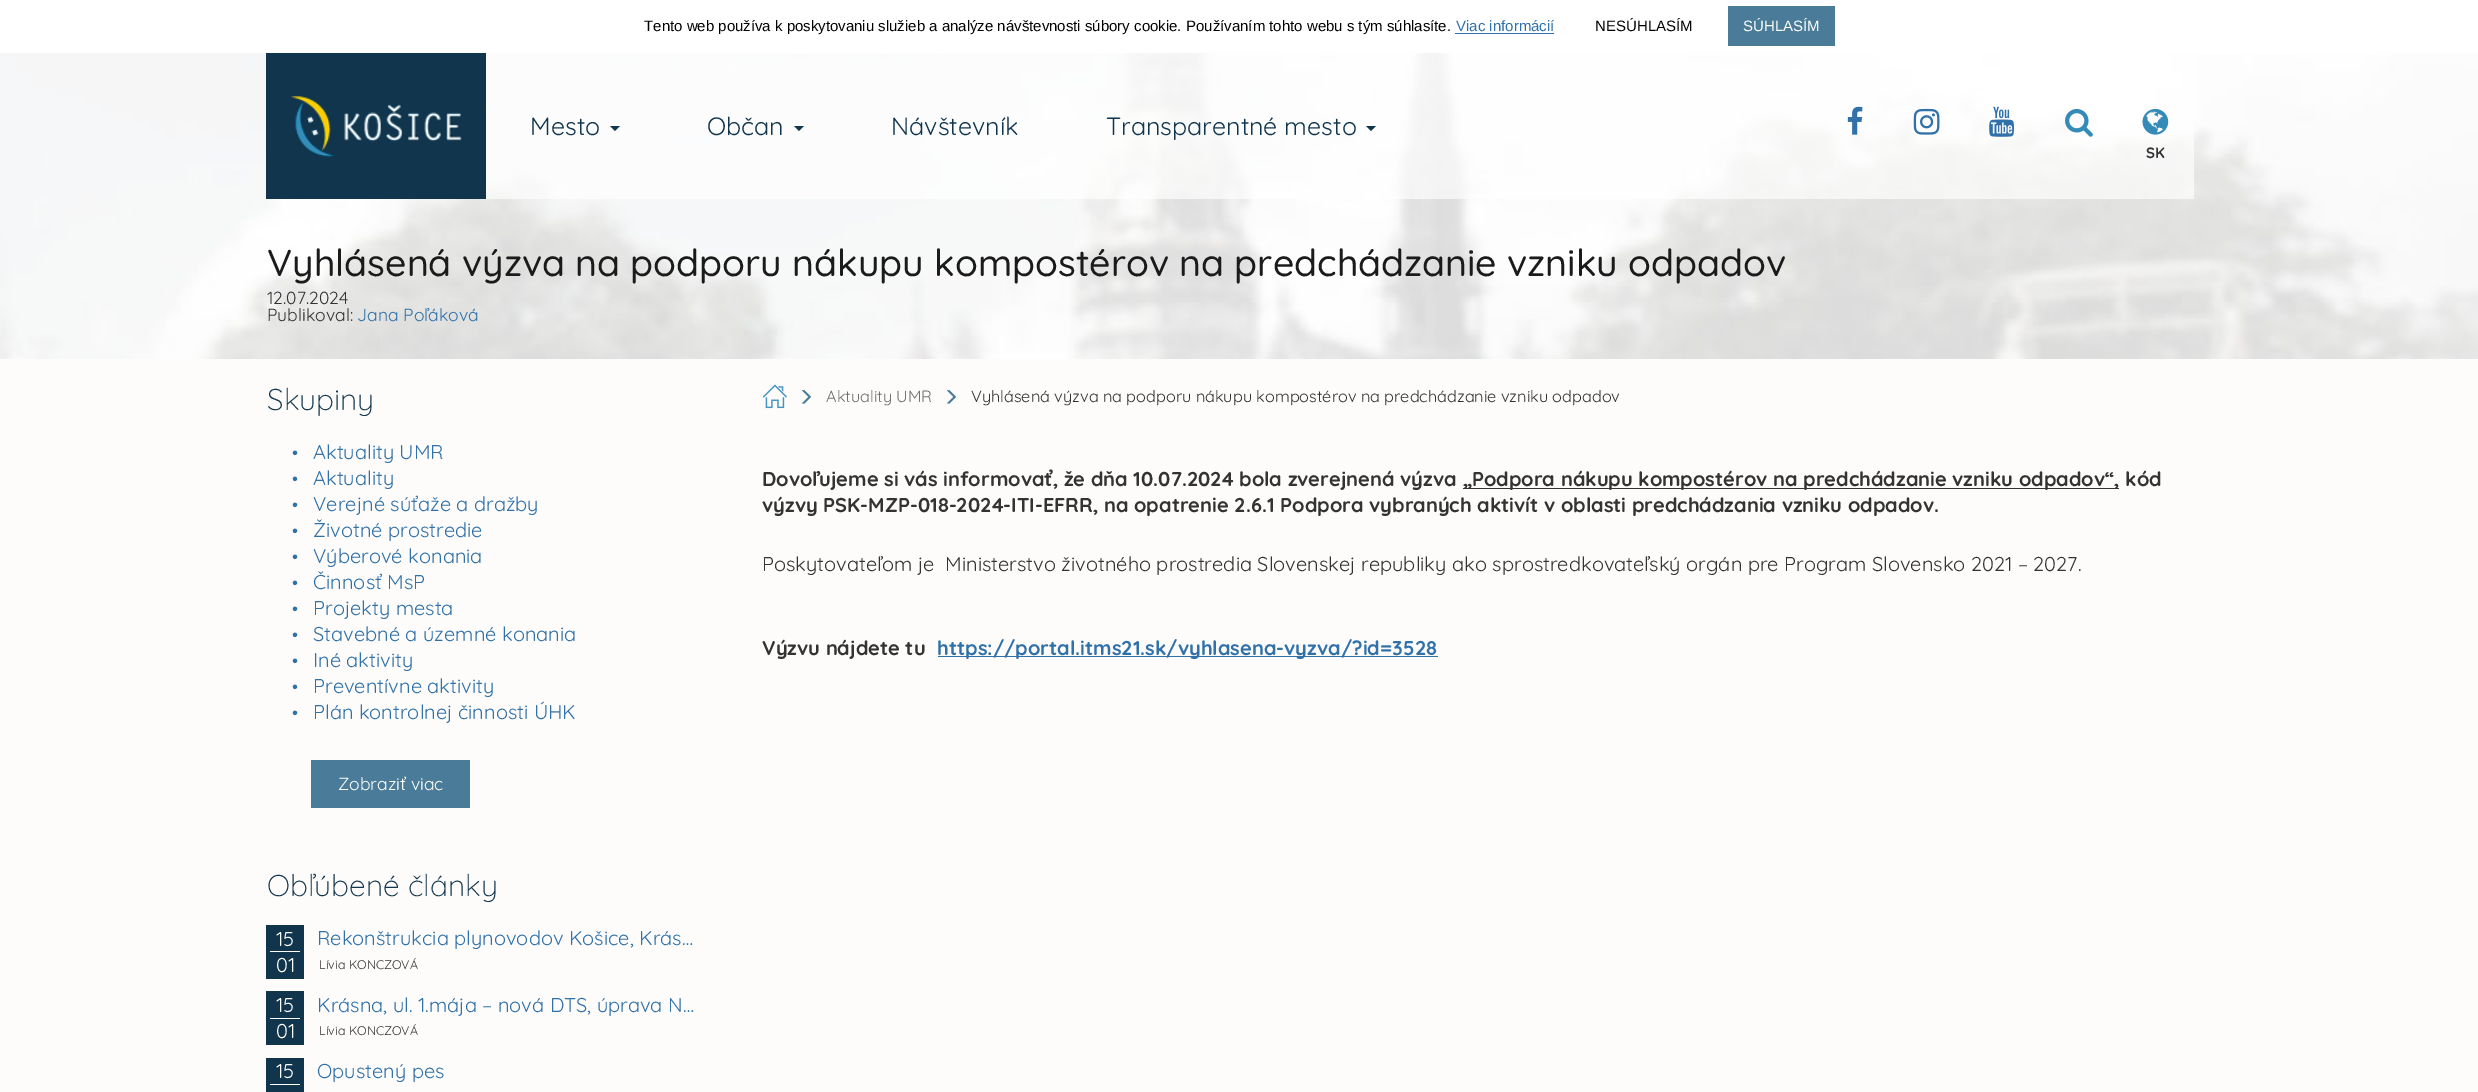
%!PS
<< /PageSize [2478 1092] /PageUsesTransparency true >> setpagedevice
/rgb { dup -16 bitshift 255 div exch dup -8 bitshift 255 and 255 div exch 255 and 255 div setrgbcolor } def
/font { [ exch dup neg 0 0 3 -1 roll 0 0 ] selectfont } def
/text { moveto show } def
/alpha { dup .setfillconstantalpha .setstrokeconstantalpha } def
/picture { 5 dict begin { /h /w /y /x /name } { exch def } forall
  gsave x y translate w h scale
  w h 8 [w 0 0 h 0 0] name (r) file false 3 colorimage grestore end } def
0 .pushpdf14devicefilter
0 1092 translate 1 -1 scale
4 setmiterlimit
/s1 { /LiberationSans-Regular 15 font 16#000000 rgb } def
/s2 { /LiberationSans-Regular 15 font 16#3071A9 rgb } def
/s3 { /LiberationSans-Regular 15 font 16#FFFFFF rgb } def
/s4 { /Quicksand-Regular 25 font 16#12354E rgb } def
/s5 { /Quicksand-Bold 15 font 16#333333 rgb } def
/s6 { /Quicksand-Medium 37.5 font 16#1B1B1B rgb } def
/s7 { /Quicksand-Regular 17.5 font 16#333333 rgb } def
/s8 { /Quicksand-Regular 17.5 font 16#3071A9 rgb } def
/s9 { /Quicksand-Light 30 font 16#12354E rgb } def
/s10 { /Quicksand-Regular 20 font 16#3071A9 rgb } def
/s11 { /Quicksand-Regular 17.5 font 16#FFFFFF rgb } def
/s12 { /Quicksand-Regular 20 font 16#FFFFFF rgb } def
/s13 { /Quicksand-Regular 12.5 font 16#333333 rgb } def
/s14 { /Quicksand-Regular 16.25 font 16#707070 rgb } def
/s15 { /Quicksand-Regular 16.25 font 16#333333 rgb } def
/s16 { /Quicksand-Bold 20 font 16#333333 rgb } def
/s17 { /Quicksand-Regular 20 font 16#333333 rgb } def
/s18 { /Quicksand-Bold 20 font 16#3071A9 rgb } def
16#FDFCFA rgb
0 0 2478 1092 rectfill
16#FFFFFF rgb
0 0 2478 53 rectfill
s1
(Tento web používa k poskytovaniu služieb a analýze návštevnosti súbory cookie. Používaním tohto webu s tým súhlasíte.) 644 31 text
s2
(Viac informácií) 1456 31 text
1455 33 99 1 rectfill
s1
(NESÚHLASÍM) 1595 31 text
16#4A7C99 rgb
1728 6 107 40 rectfill
s3
(SÚHLASÍM) 1743 31 text
(pic1.raw) 0 53 2478 306 picture
16#12354E rgb
266 53 220 146 rectfill
(pic2.raw) 291 96 171 61 picture
0.65 alpha
16#FFFFFF rgb
486 53 1708 146 rectfill
1 alpha
s4
(Mesto) 530 135 text
610 126 moveto 620 126 lineto 615 131 lineto closepath fill
(Občan) 707 135 text
794 126 moveto 804 126 lineto 799 131 lineto closepath fill
(Návštevník) 891 135 text
(Transparentné mesto) 1106 135 text
1366 126 moveto 1376 126 lineto 1371 131 lineto closepath fill
(pic3.raw) 1847 106 16 29 picture
(pic4.raw) 1913 108 27 27 picture
(pic5.raw) 1989 106 25 31 picture
(pic6.raw) 2065 108 28 29 picture
(pic7.raw) 2142 108 27 27 picture
s5
(SK) 2146 158 text
s6
(Vyhlásená výzva na podporu nákupu kompostérov na predchádzanie vzniku odpadov) 267 276 text
s7
(12.07.2024) 267 304 text
(Publikoval:) 267 321 text
s8
(Jana Poľáková) 357 321 text
s9
(Skupiny) 267 410 text
s8
(•) 292 459 text
s10
(Aktuality UMR) 313 459 text
s8
(•) 292 485 text
s10
(Aktuality) 313 485 text
s8
(•) 292 511 text
s10
(Verejné súťaže a dražby) 313 511 text
s8
(•) 292 537 text
s10
(Životné prostredie) 313 537 text
s8
(•) 292 563 text
s10
(Výberové konania) 313 563 text
s8
(•) 292 589 text
s10
(Činnosť MsP) 313 589 text
s8
(•) 292 615 text
s10
(Projekty mesta) 313 615 text
s8
(•) 292 641 text
s10
(Stavebné a územné konania) 313 641 text
s8
(•) 292 667 text
s10
(Iné aktivity) 313 667 text
s8
(•) 292 693 text
s10
(Preventívne aktivity) 313 693 text
s8
(•) 292 719 text
s10
(Plán kontrolnej činnosti ÚHK) 313 719 text
16#4A7C99 rgb
311 760 159 48 rectfill
s11
(Zobraziť viac) 338 790 text
s9
(Obľúbené články) 267 896 text
266 925 38 54 rectfill
s12
(15) 276 946 text
270 951 30 1 rectfill
(01) 276 972 text
s10
(Rekonštrukcia plynovodov Košice, Krás…) 317 945 text
s13
(Lívia KONCZOVÁ) 319 969 text
16#12354E rgb
266 991 38 54 rectfill
s12
(15) 276 1012 text
270 1018 30 1 rectfill
(01) 276 1038 text
s10
(Krásna, ul. 1.mája – nová DTS, úprava N…) 317 1012 text
s13
(Lívia KONCZOVÁ) 319 1035 text
16#12354E rgb
266 1058 38 34 rectfill
s12
(15) 276 1078 text
270 1084 30 1 rectfill
s10
(Opustený pes) 317 1078 text
(pic8.raw) 763 384 24 25 picture
(pic9.raw) 801 390 11 14 picture
s14
(Aktuality UMR) 826 402 text
(pic9.raw) 946 390 11 14 picture
s15
(Vyhlásená výzva na podporu nákupu kompostérov na predchádzanie vzniku odpadov) 971 402 text
s16
(Dovoľujeme si vás informovať, že dňa 10.07.2024 bola zverejnená výzva) 762 486 text
1463 488 656 1 rectfill
(„Podpora nákupu kompostérov na predchádzanie vzniku odpadov“, kód) 1463 486 text
(výzvy PSK-MZP-018-2024-ITI-EFRR, na opatrenie 2.6.1 Podpora vybraných aktivít v oblasti predchádzania vzniku odpadov.) 762 512 text
s17
(Poskytovateľom je  Ministerstvo životného prostredia Slovenskej republiky ako sprostredkovateľský orgán pre Program Slovensko 2021 – 2027.) 762 571 text
s16
(Výzvu nájdete tu) 762 655 text
16#3071A9 rgb
938 656 500 1 rectfill
(https://portal.itms21.sk/vyhlasena-vyzva/?id=3528) 937 655 text
.poppdf14devicefilter showpage
